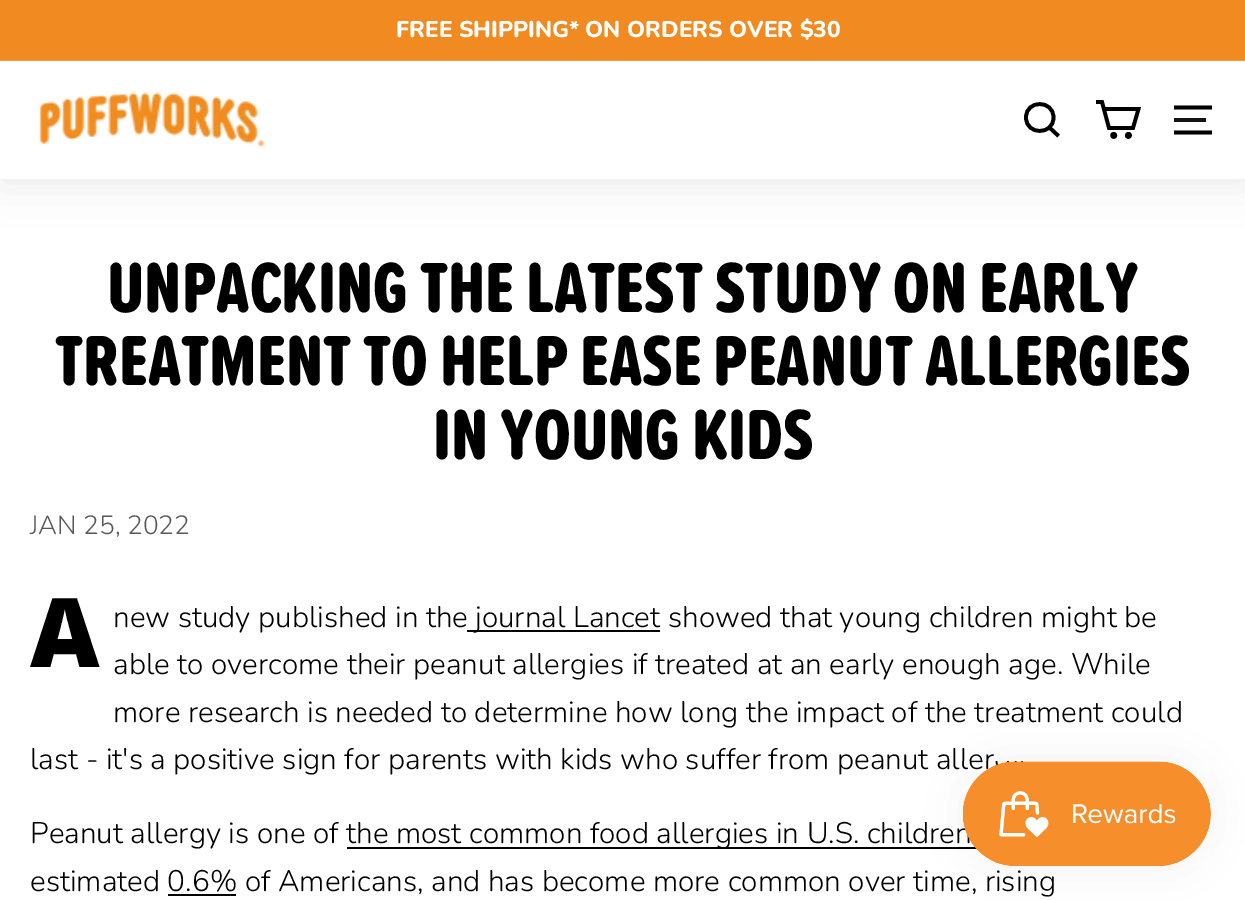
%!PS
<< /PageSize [1245 900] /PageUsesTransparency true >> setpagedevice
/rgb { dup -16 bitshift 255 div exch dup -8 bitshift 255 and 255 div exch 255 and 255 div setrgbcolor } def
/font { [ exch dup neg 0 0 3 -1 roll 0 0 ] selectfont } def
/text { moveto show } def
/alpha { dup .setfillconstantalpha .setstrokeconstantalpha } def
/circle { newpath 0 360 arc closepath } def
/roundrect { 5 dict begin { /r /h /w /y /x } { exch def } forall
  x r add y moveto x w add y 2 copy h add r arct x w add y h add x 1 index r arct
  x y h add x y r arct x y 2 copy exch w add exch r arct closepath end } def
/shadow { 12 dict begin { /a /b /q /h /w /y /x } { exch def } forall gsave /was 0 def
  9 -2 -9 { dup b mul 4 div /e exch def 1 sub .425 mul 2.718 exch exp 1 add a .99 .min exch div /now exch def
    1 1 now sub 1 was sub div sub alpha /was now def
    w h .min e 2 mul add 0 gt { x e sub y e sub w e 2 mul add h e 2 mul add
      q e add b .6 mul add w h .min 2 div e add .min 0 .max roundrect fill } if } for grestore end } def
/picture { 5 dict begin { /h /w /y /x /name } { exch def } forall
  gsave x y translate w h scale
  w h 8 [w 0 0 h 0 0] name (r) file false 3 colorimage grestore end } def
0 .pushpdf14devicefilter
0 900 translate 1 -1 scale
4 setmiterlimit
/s1 { /Nunito-ExtraBold 22.75 font 16#FFFFFF rgb } def
/s2 { /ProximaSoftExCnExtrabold-ExtraBold 73.5 font 16#000000 rgb } def
/s3 { /Nunito-Light 26.25 font 16#595959 rgb } def
/s4 { /NotoSans-Black 96 font 16#000000 rgb } def
/s5 { /Nunito-Light 29.75 font 16#000000 rgb } def
16#FFFFFF rgb
0 0 1245 900 rectfill
16#000000 rgb
0 61 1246 118 0 22 0.1 shadow
16#FFFFFF rgb
0 61 1245 118 rectfill
(pic1.raw) 39 92 226 56 picture
16#000000 rgb
3.7 setlinewidth
1053.5 117.5 moveto 1053.5 135.5 1026 135.5 1026 117.5 curveto 1026 99.5 1053.5 99.5 1053.5 117.5 curveto closepath 1058.5 136 moveto 1049.5 127.5 lineto stroke
1104 109 moveto 1138.5 109 lineto 1133 128 lineto 1109 128 lineto 1102 102 lineto 1096 102 lineto stroke
1113.7 135.4 1.5 circle gsave fill grestore
stroke
1128.4 135.4 1.5 circle gsave fill grestore
stroke
1174 107.5 moveto 1212 107.5 lineto stroke
16#131313 rgb
1174 118 32 4 rectfill
16#000000 rgb
1174 132.5 moveto 1212 132.5 lineto stroke
16#F18A21 rgb
0 0 1245 61 rectfill
s1
(FREE SHIPPING* ON ORDERS OVER $30) 396 37 text
0.15 alpha
0 60 1245 1 rectfill
1 alpha
s2
(UNPACKING THE LATEST STUDY ON EARLY) 107 312 text
(TREATMENT TO HELP EASE PEANUT ALLERGIES) 55 385 text
(IN YOUNG KIDS) 433 459 text
s3
(JAN 25, 2022) 30 534 text
s4
(A) 30 667 text
s5
(new study published in the) 113 627 text
467 630 193 2 rectfill
(journal Lancet showed that young children might be) 475 627 text
(able to overcome their peanut allergies if treated at an early enough age. While) 113 674 text
(more research is needed to determine how long the impact of the treatment could) 113 722 text
(last - it's a positive sign for parents with kids who suffer from peanut aller) 30 769 text
(Peanut allergy is one of) 30 843 text
347 847 633 2 rectfill
(the most common food allergies in U.S. children) 346 843 text
(estimated 0.6% of Americans, and has become more common over time, rising) 30 891 text
168 894 68 2 rectfill
963 761 248 105 52.5 22 0.05 shadow
(pic2.raw) 962 761 249 105 picture
.poppdf14devicefilter showpage
